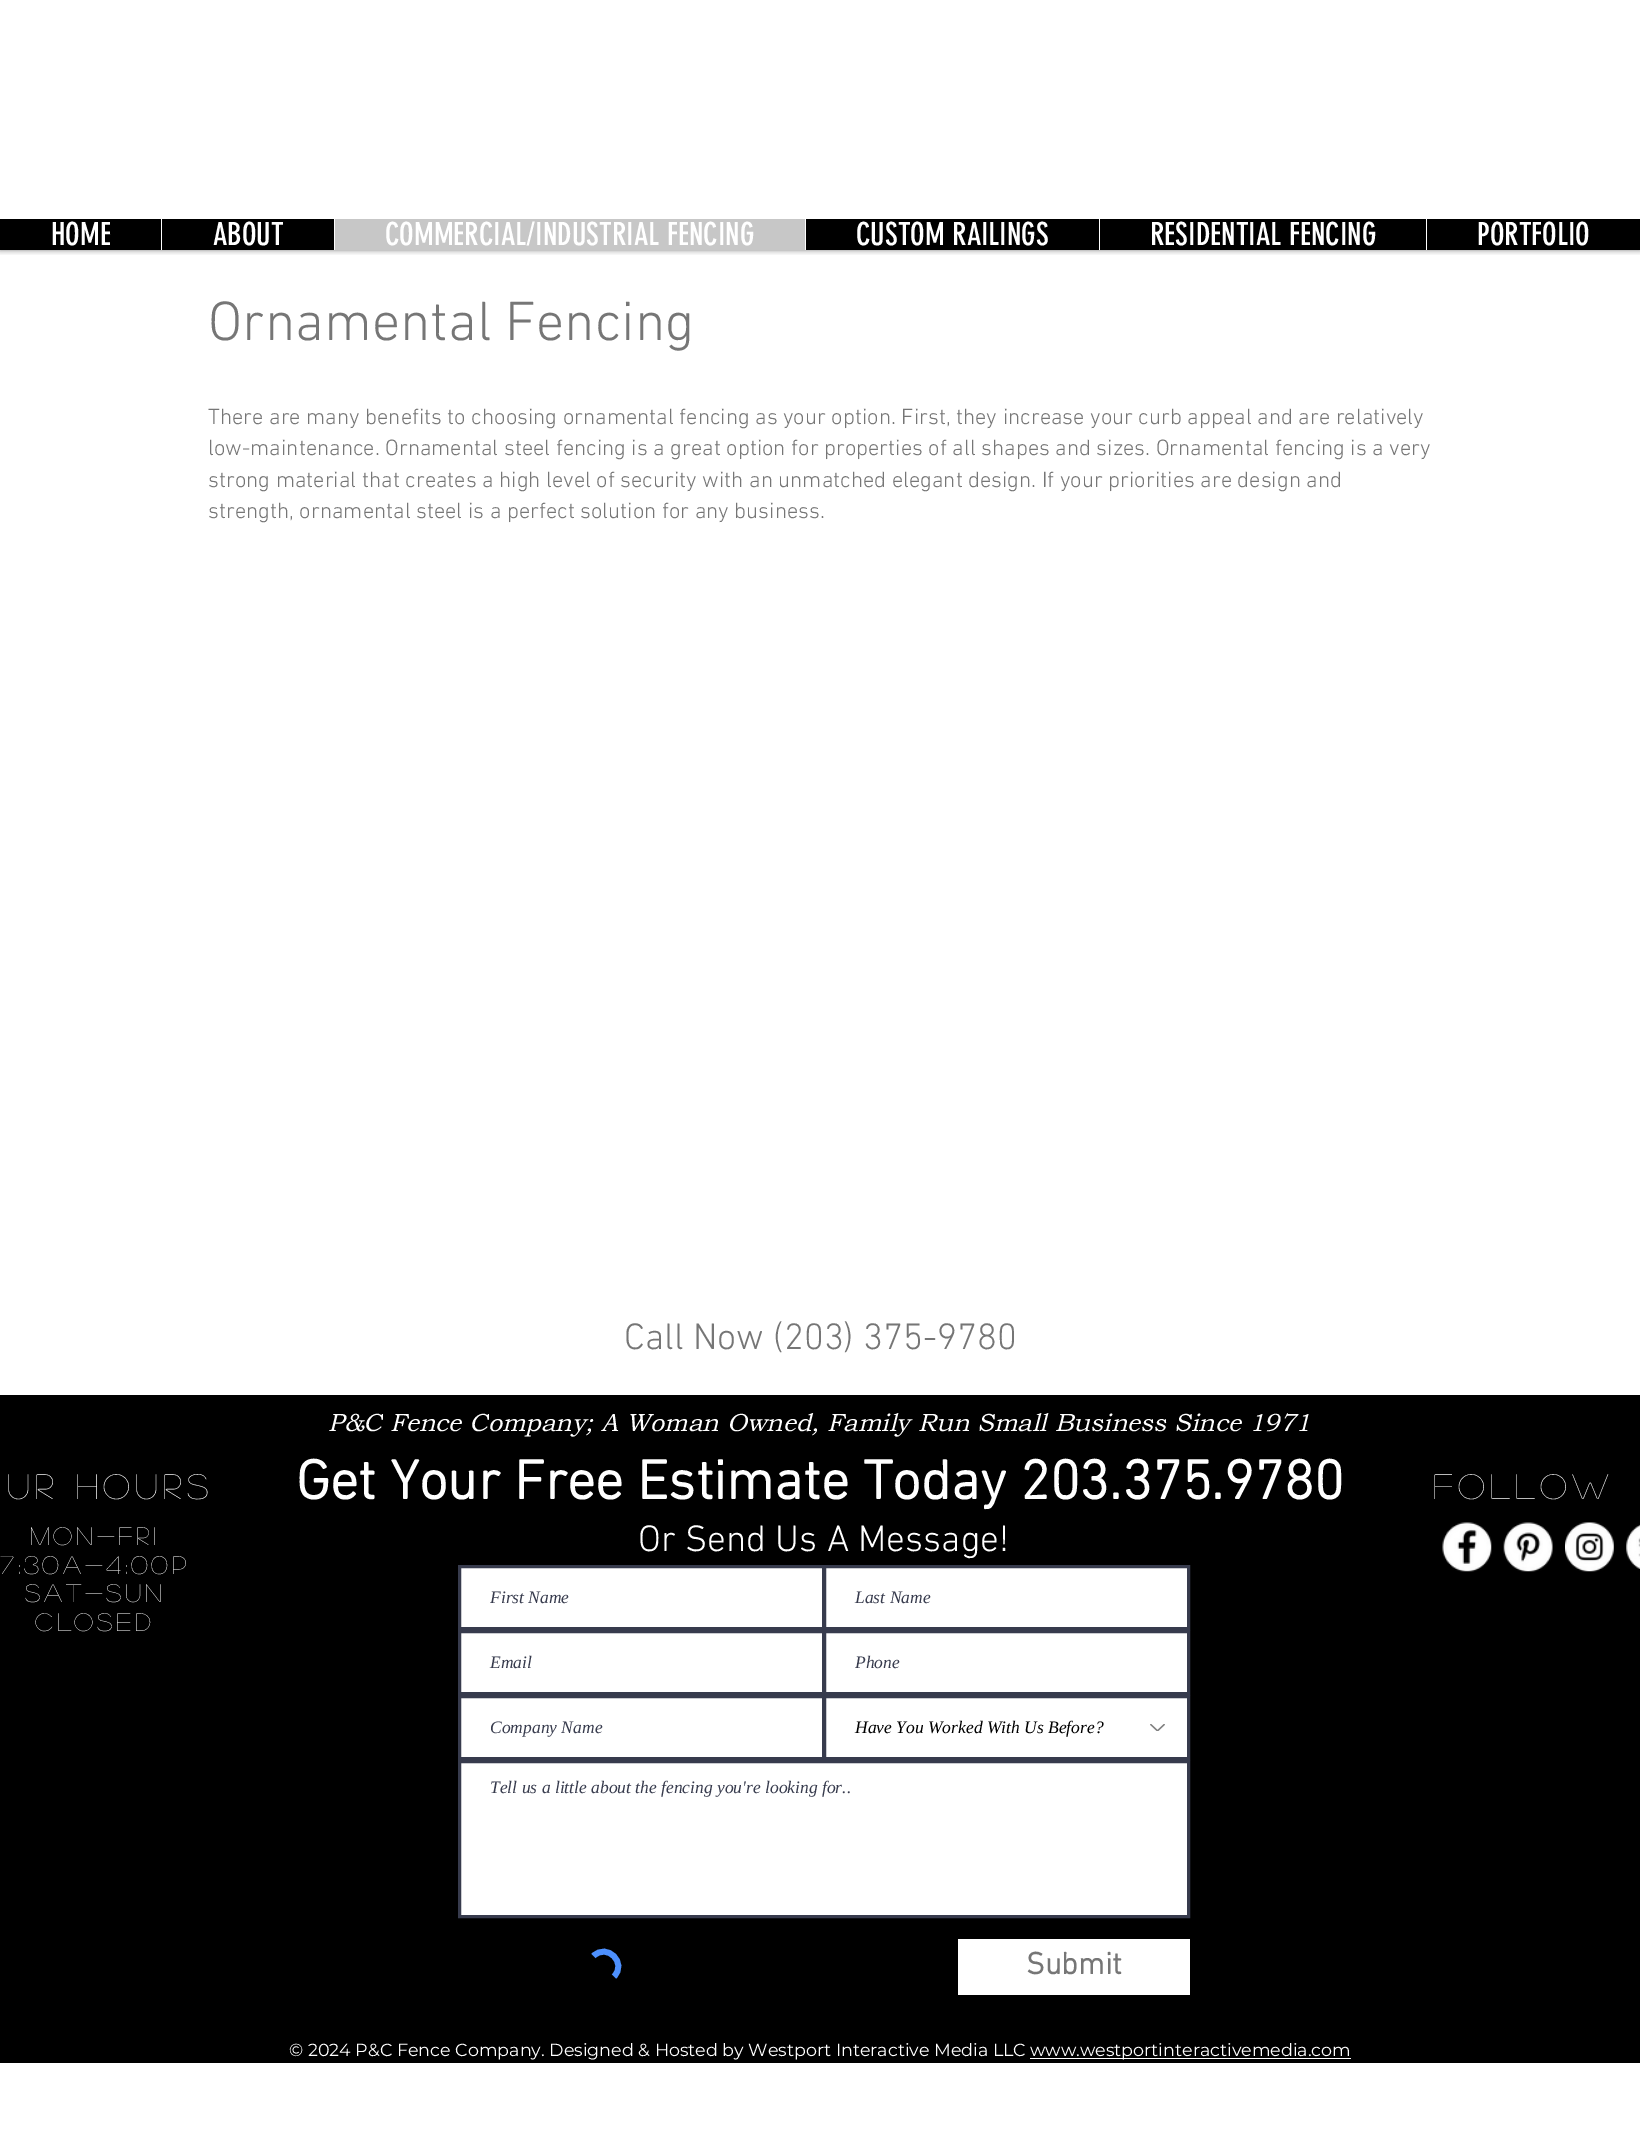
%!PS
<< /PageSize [1640 2131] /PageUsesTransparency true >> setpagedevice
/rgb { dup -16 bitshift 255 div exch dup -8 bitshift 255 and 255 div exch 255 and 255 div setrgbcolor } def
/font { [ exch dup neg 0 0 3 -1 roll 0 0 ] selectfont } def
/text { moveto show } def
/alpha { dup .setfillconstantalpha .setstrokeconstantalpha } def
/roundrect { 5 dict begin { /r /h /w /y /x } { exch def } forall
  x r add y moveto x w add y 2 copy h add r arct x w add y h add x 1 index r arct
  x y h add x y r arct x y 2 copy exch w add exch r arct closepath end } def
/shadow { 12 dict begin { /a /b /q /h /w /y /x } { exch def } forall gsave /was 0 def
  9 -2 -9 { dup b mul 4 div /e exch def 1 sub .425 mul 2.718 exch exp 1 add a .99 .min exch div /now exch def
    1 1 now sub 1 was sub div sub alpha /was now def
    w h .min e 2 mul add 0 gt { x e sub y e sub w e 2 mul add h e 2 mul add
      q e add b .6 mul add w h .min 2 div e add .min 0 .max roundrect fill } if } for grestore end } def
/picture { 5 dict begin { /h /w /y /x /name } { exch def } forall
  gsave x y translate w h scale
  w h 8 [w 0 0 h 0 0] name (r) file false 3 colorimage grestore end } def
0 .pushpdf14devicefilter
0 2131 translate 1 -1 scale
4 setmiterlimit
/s1 { /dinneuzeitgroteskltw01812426-Regular 31.25 font 16#FFFFFF rgb } def
/s2 { /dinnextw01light-Light 56.25 font 16#767676 rgb } def
/s3 { /dinnextw01light-Light 22.5 font 16#767676 rgb } def
/s4 { /dinnextw01light-Light 37.5 font 16#767676 rgb } def
/s5 { /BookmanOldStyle-Italic 25 font 16#FFFFFF rgb } def
/s6 { /dinnextw01light-Bold 56.25 font 16#FFFFFF rgb } def
/s7 { /dinnextw01light-Light 37.5 font 16#FFFFFF rgb } def
/s8 { /LiberationSerif-Italic 17.5 font 16#373B4D rgb } def
/s9 { /LiberationSerif-Italic 17.5 font 16#000000 rgb } def
/s10 { /dinnextw01light-Bold 31.25 font 16#767676 rgb } def
/s11 { /Montserrat-Regular 17.5 font 16#FFFFFF rgb } def
16#FFFFFF rgb
0 0 1640 2131 rectfill
gsave
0 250 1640 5 rectclip
16#000000 rgb
0 0 1640 250 0 3 0.5 shadow
grestore
16#000000 rgb
0 219 1640 31 rectfill
s1
(HOME) 51 245 text
161 219 1 31 rectfill
(ABOUT) 213 245 text
16#C7C7C7 rgb
335 219 470 31 rectfill
16#FFFFFF rgb
334 219 1 31 rectfill
(COMMERCIAL/INDUSTRIAL FENCING) 385 245 text
805 219 1 31 rectfill
(CUSTOM RAILINGS) 856 245 text
1099 219 1 31 rectfill
(RESIDENTIAL FENCING) 1150 245 text
1426 219 1 31 rectfill
(PORTFOLIO) 1477 245 text
s2
(Ornamental Fencing) 208 340 text
s3
(There are many benefits to choosing ornamental fencing as your option. First, they increase your curb appeal and are relatively) 208 424 text
(low-maintenance. Ornamental steel fencing is a great option for properties of all shapes and sizes. Ornamental fencing is a very) 208 455 text
(strong material that creates a high level of security with an unmatched elegant design. If your priorities are design and) 208 487 text
(strength, ornamental steel is a perfect solution for any business.) 208 518 text
s4
(Call Now \(203\) 375-9780) 624 1349 text
16#000000 rgb
0 1395 1640 668 rectfill
/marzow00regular-Regular 35 font
16#FFFFFF rgb
7 1499 moveto 5.25 0 (ur Hours) ashow
s5
(P&C Fence Company; A Woman Owned, Family Run Small Business Since 1971) 328 1431 text
s6
(Get Your Free Estimate Today 203.375.9780) 296 1499 text
s7
(Or Send Us A Message!) 638 1551 text
459.5 1566.5 moveto 823.5 1566.5 lineto 823.5 1628.5 lineto 459.5 1628.5 lineto closepath gsave fill grestore
16#373B4D rgb
3 setlinewidth
stroke
s8
(First Name) 490 1603 text
16#FFFFFF rgb
824.5 1566.5 moveto 1188.5 1566.5 lineto 1188.5 1628.5 lineto 824.5 1628.5 lineto closepath gsave fill grestore
16#373B4D rgb
stroke
(Last Name) 855 1603 text
16#FFFFFF rgb
459.5 1631.5 moveto 823.5 1631.5 lineto 823.5 1693.5 lineto 459.5 1693.5 lineto closepath gsave fill grestore
16#373B4D rgb
stroke
(Email) 490 1668 text
16#FFFFFF rgb
824.5 1631.5 moveto 1188.5 1631.5 lineto 1188.5 1693.5 lineto 824.5 1693.5 lineto closepath gsave fill grestore
16#373B4D rgb
stroke
(Phone) 855 1668 text
16#FFFFFF rgb
459.5 1696.5 moveto 823.5 1696.5 lineto 823.5 1758.5 lineto 459.5 1758.5 lineto closepath gsave fill grestore
16#373B4D rgb
stroke
(Company Name) 490 1733 text
16#FFFFFF rgb
824.5 1696.5 moveto 1188.5 1696.5 lineto 1188.5 1758.5 lineto 824.5 1758.5 lineto closepath gsave fill grestore
16#373B4D rgb
stroke
s9
(Have You Worked With Us Before?) 855 1733 text
(pic1.raw) 1150 1724 15 7 picture
16#FFFFFF rgb
459.5 1761.5 moveto 1188.5 1761.5 lineto 1188.5 1916.5 lineto 459.5 1916.5 lineto closepath gsave fill grestore
16#373B4D rgb
stroke
(Tell us a little about the fencing you're looking for..) 490 1793 text
16#4D90FE rgb
5.8 setlinewidth
593.5 1956 moveto 607 1942.5 627.5 1963 614 1976.5 curveto stroke
16#FFFFFF rgb
958 1939 232 56 rectfill
s10
(Submit) 1026 1974 text
/marzow00regular-Regular 35 font
16#FFFFFF rgb
1433 1499 moveto 5.25 0 (Follow) ashow
/marzow00regular-Regular 25 font
30 1545 moveto 3.75 0 (Mon-Fri) ashow
0 1574 moveto 3.75 0 (7:30a-4:00p) ashow
25 1602 moveto 3.75 0 (Sat-Sun) ashow
35 1631 moveto 3.75 0 (Closed) ashow
(pic2.raw) 1442 1522 50 50 picture
(pic3.raw) 1503 1522 50 50 picture
(pic4.raw) 1565 1522 49 50 picture
(pic5.raw) 1626 1524 14 45 picture
s11
(© 2024 P&C Fence Company. Designed & Hosted by Westport Interactive Media LLC) 289 2056 text
1030 2058 321 1 rectfill
(www.westportinteractivemedia.com) 1030 2056 text
.poppdf14devicefilter showpage
